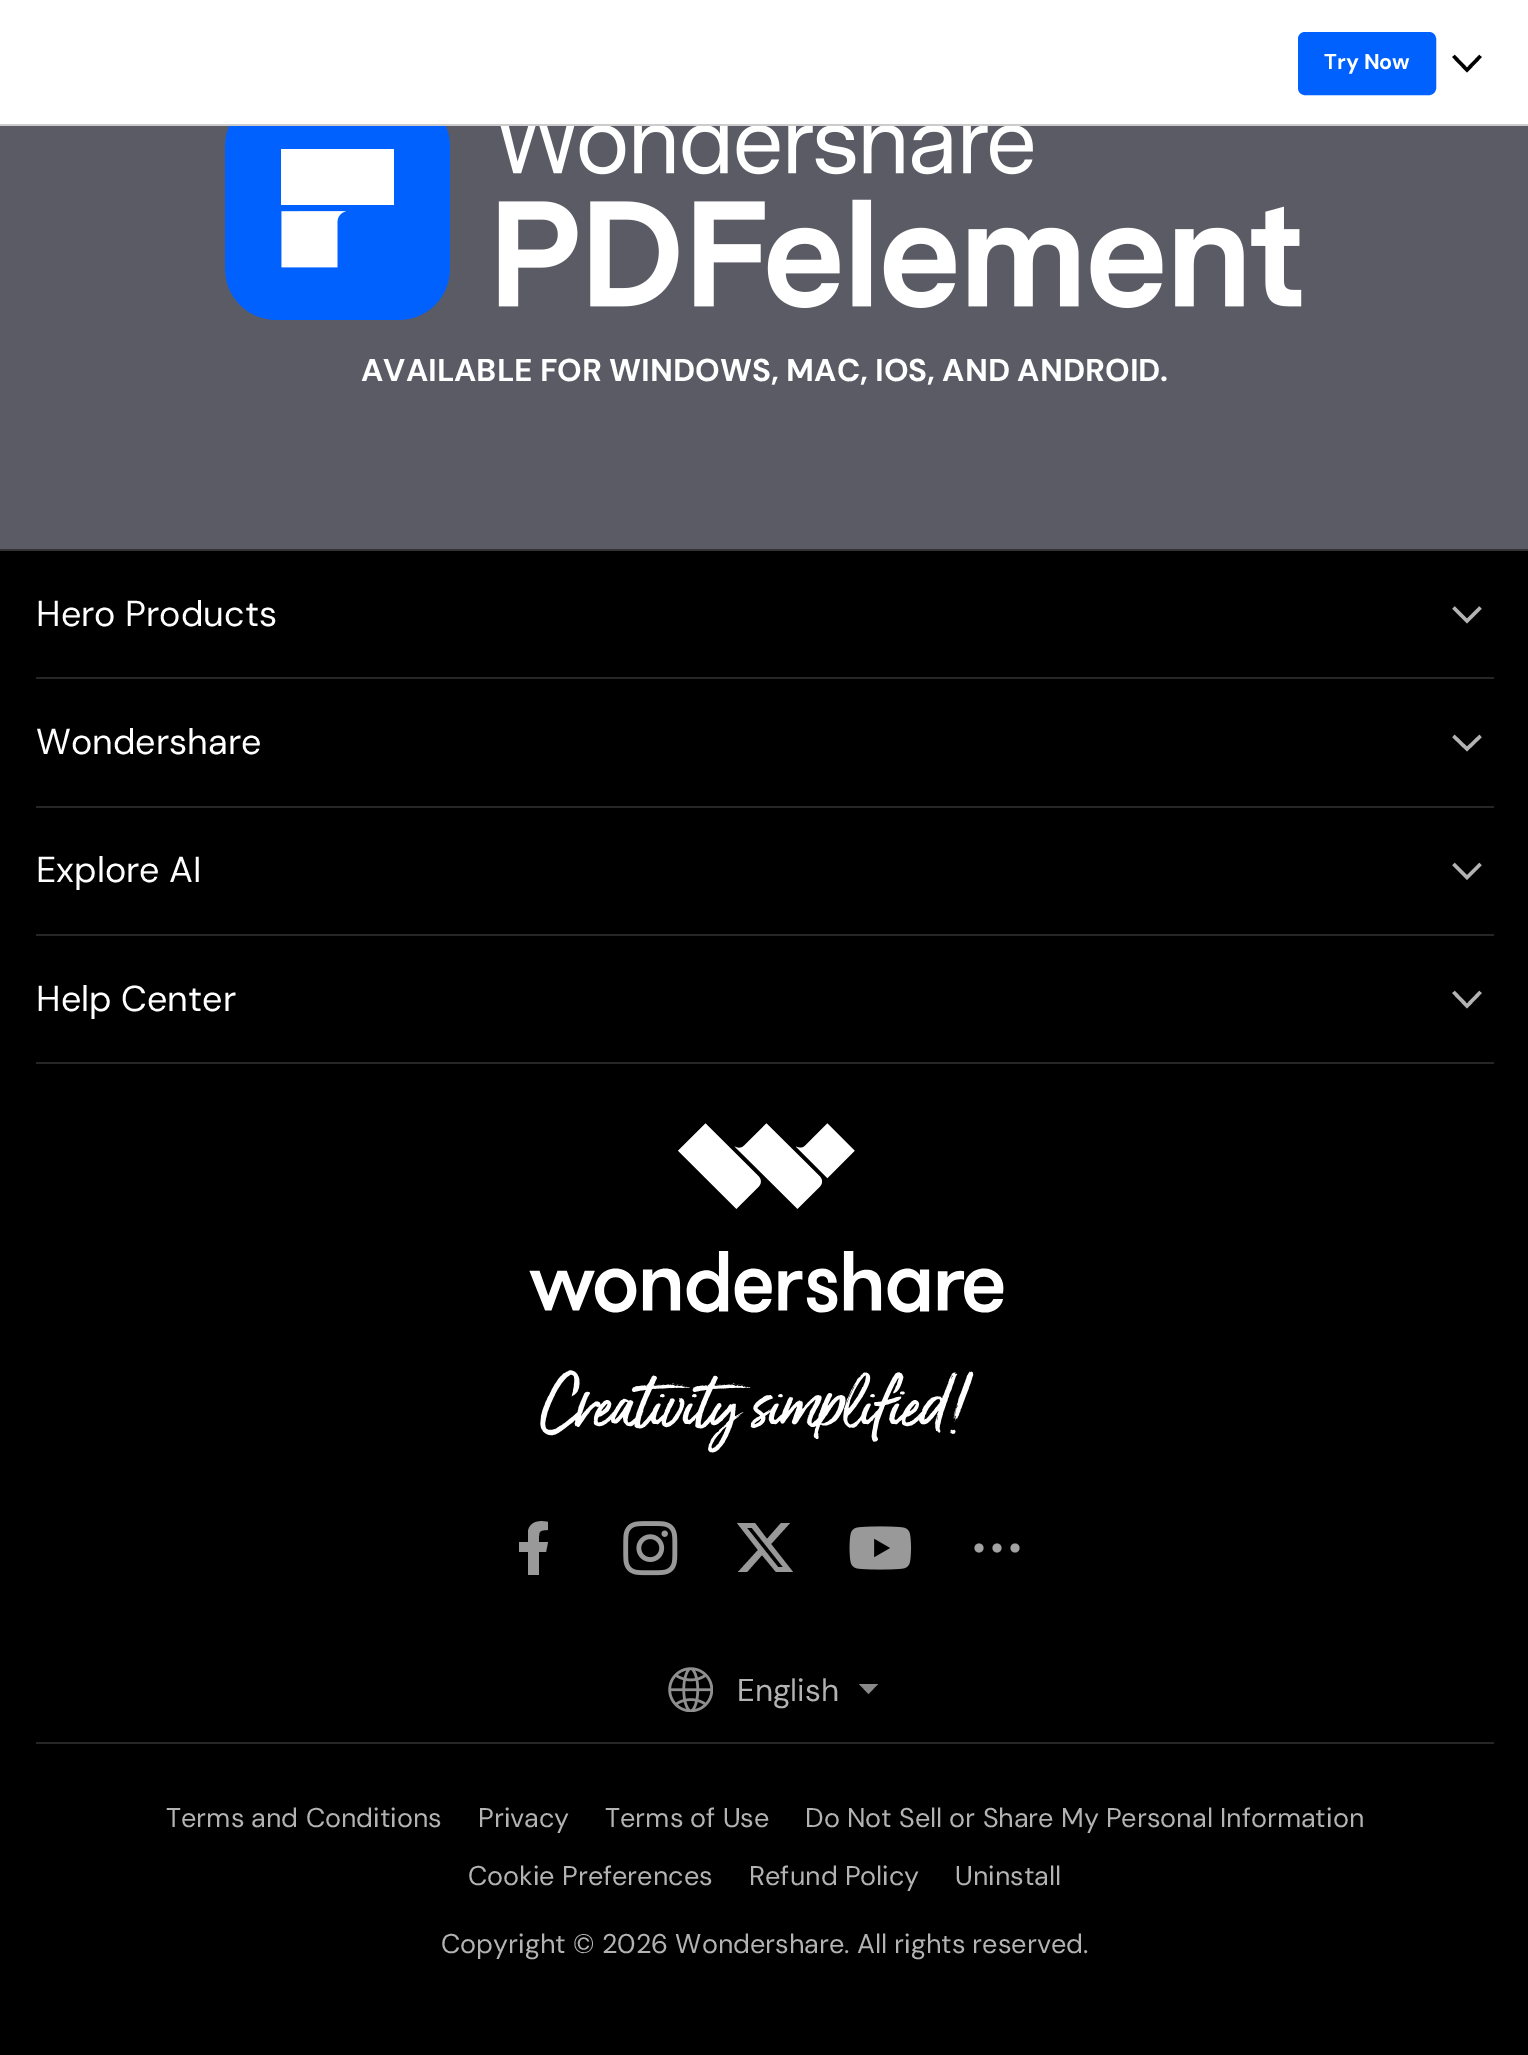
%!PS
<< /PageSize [1528 2055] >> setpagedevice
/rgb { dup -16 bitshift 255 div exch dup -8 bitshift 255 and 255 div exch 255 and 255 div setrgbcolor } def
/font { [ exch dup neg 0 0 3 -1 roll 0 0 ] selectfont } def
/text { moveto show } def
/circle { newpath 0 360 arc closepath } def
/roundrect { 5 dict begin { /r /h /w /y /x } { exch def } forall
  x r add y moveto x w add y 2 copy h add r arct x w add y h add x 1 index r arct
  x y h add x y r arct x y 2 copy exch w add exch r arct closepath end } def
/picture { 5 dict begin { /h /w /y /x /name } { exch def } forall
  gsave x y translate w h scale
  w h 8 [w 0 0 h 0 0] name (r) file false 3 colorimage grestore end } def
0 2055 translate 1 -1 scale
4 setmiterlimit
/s1 { /DMSans-Bold 21.5 font 16#FFFFFF rgb } def
/s2 { /DMSans-Bold 31.5 font 16#FFFFFF rgb } def
/s3 { /DMSans-Regular 36 font 16#FFFFFF rgb } def
/s4 { /DMSans-Regular 31.5 font 16#B3B3B3 rgb } def
/s5 { /DMSans-Regular 27 font 16#B3B3B3 rgb } def
16#5A5B64 rgb
0 0 1528 2055 rectfill
16#FFFFFF rgb
0 0 1528 124 rectfill
16#CCCCCC rgb
0 124 1528 2 rectfill
16#0061FF rgb
1299 33 136 61 6 roundrect gsave fill grestore
2 setlinewidth
stroke
s1
(Try Now) 1324 69 text
16#000000 rgb
3.4 setlinewidth
1453.5 56 moveto 1467 70 lineto 1480.5 56 lineto stroke
(pic1.raw) 225 126 1077 194 picture
s2
(AVAILABLE FOR WINDOWS, MAC, IOS, AND ANDROID.) 361 381 text
16#000000 rgb
0 551 1528 1504 rectfill
16#333333 rgb
0 549 1528 2 rectfill
16#262626 rgb
36 677 1458 2 rectfill
s3
(Hero Products) 36 626 text
16#B3B3B3 rgb
1453.5 607.5 moveto 1467 621 lineto 1480.5 607.5 lineto stroke
16#262626 rgb
36 806 1458 2 rectfill
s3
(Wondershare) 36 754 text
16#B3B3B3 rgb
1453.5 736 moveto 1467 749 lineto 1480.5 736 lineto stroke
16#262626 rgb
36 934 1458 2 rectfill
s3
(Explore AI) 36 882 text
16#B3B3B3 rgb
1453.5 864 moveto 1467 877.5 lineto 1480.5 864 lineto stroke
16#262626 rgb
36 1062 1458 2 rectfill
s3
(Help Center) 36 1011 text
16#B3B3B3 rgb
1453.5 992 moveto 1467 1006 lineto 1480.5 992 lineto stroke
(pic2.raw) 529 1123 475 330 picture
16#999999 rgb
546 1552 moveto 548 1542 lineto 539 1542 lineto 539 1532 538 1530 548 1530 curveto 548 1522 lineto 540 1520 530 1521 528 1531 curveto 528 1542 lineto 519 1542 lineto 519 1552 lineto 528 1552 lineto 528 1575 lineto 539 1575 lineto 539 1552 lineto closepath fill
(pic3.raw) 623 1521 55 55 picture
781 1523 moveto 790 1523 lineto 771 1544 lineto 793 1572 lineto 776 1572 lineto 762 1555 lineto 747 1572 lineto 738 1572 lineto 758 1550 lineto 737 1523 lineto 755 1523 lineto 767 1539 lineto closepath 778 1567 moveto 783 1567 lineto 752 1528 lineto 747 1528 lineto closepath fill
(pic4.raw) 849 1526 63 44 picture
16#A3A3A3 rgb
979 1548 4.5 circle fill
997 1548 4.5 circle fill
1015 1548 4.5 circle fill
(pic5.raw) 668 1667 45 45 picture
s4
(English) 737 1701 text
16#898989 rgb
868.5 1694 moveto 859 1684 lineto 878 1684 lineto closepath fill
16#262626 rgb
36 1742 1458 2 rectfill
s5
(Terms and Conditions) 166 1827 text
(Privacy) 478 1827 text
(Terms of Use) 605 1827 text
(Do Not Sell or Share My Personal Information) 805 1827 text
(Cookie Preferences) 468 1885 text
(Refund Policy) 749 1885 text
(Uninstall) 955 1885 text
(Copyright © 2026 Wondershare. All rights reserved.) 441 1953 text
showpage
